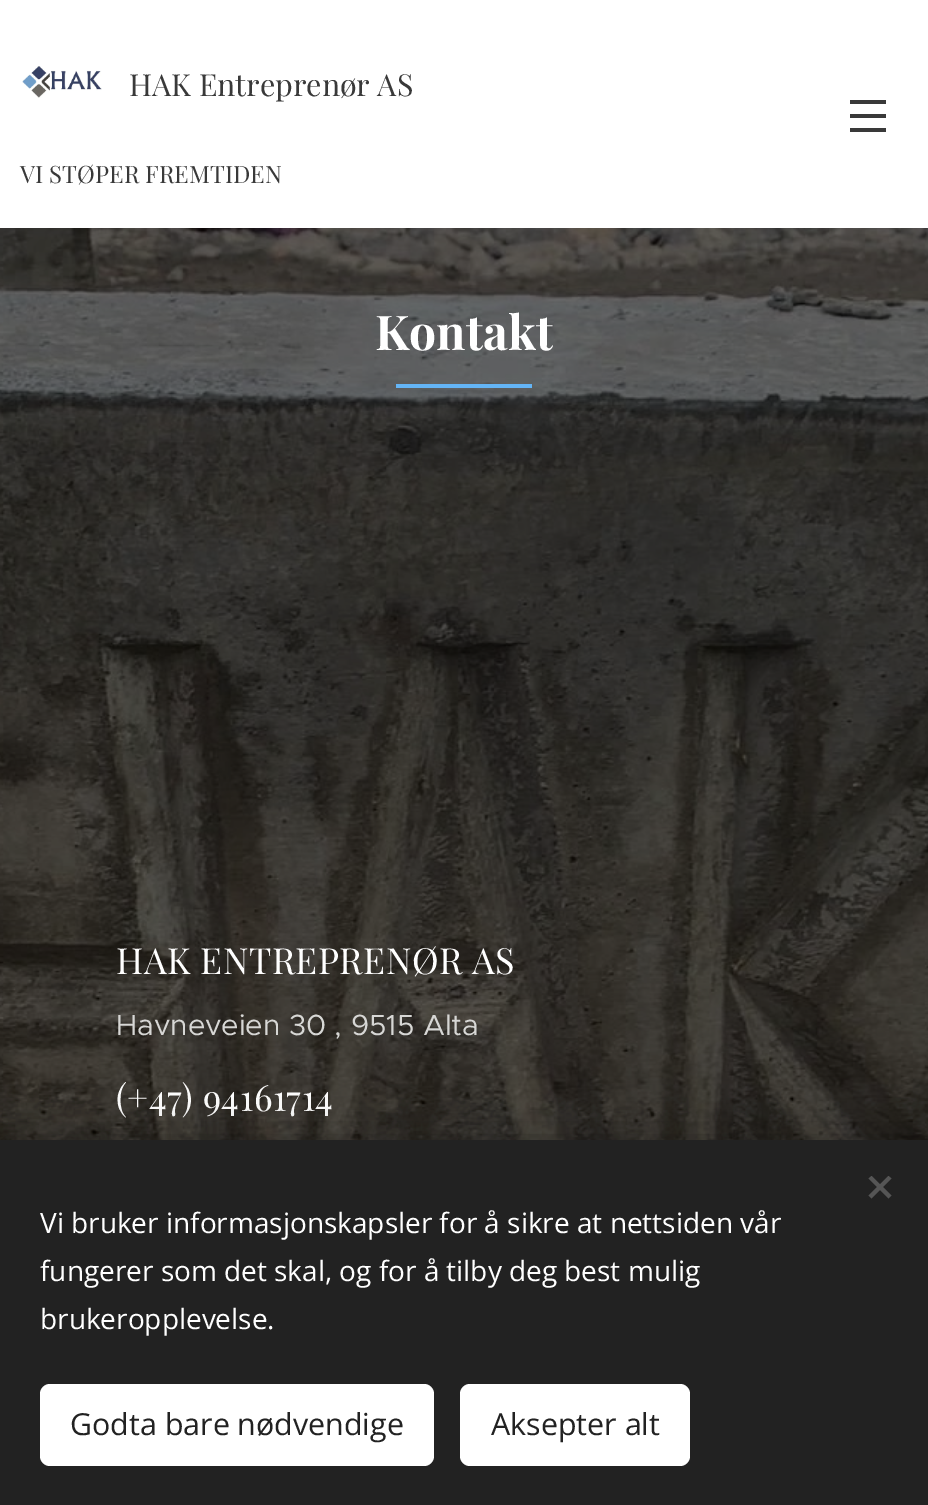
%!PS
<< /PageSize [928 1505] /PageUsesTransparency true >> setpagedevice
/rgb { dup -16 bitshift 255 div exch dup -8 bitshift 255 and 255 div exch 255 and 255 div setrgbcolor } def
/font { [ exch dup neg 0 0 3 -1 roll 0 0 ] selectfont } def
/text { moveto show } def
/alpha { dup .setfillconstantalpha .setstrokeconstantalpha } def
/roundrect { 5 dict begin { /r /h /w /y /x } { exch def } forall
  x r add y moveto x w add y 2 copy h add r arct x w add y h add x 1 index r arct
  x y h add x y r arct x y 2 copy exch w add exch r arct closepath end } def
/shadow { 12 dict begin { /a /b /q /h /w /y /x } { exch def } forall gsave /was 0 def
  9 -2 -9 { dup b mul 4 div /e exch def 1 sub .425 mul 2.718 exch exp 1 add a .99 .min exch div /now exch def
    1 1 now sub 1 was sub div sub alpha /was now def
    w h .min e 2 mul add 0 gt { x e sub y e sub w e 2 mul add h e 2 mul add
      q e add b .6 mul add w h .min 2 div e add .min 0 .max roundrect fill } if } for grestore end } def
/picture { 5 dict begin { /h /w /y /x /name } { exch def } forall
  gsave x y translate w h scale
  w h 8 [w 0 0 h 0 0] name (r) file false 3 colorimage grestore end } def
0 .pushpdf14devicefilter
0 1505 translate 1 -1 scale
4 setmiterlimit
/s1 { /PlayfairDisplay-Regular 30.4 font 16#393939 rgb } def
/s2 { /PlayfairDisplay-Regular 24 font 16#393939 rgb } def
/s3 { /PlayfairDisplay-Bold 48 font 16#FFFFFF rgb } def
/s4 { /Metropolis-Regular 29.25 font 16#D7D7D5 rgb } def
/s5 { /OpenSans-Regular 28 font 16#FFFFFF rgb } def
/s6 { /OpenSans-Regular 30.4 font 16#222222 rgb } def
16#FFFFFF rgb
0 0 928 1505 rectfill
(pic1.raw) 22 66 80 32 picture
s1
(HAK Entreprenør AS) 129 96 text
s2
(VI STØPER FREMTIDEN) 20 183 text
850 114 36 4 rectfill
850 100 36 4 rectfill
850 128 36 4 rectfill
(pic2.raw) 0 228 928 912 picture
s3
(Kontakt) 375 350 text
16#64B5F6 rgb
396 384 136 4 rectfill
/PlayfairDisplay-Regular 36 font
16#FFFFFF rgb
116 974 moveto 0.5 0 (HAK ENTREPRENØR AS) ashow
s4
(Havneveien 30 , 9515 Alta) 116 1035 text
/PlayfairDisplay-Regular 36 font
16#FFFFFF rgb
116 1111 moveto 0.5 0 (\(+47\) 94161714) ashow
16#000000 rgb
0 1140 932 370 0 25 0.33 shadow
16#222222 rgb
0 1140 928 365 rectfill
16#555555 rgb
868.5 1195.5 moveto 888.5 1176 lineto 891.5 1178.5 lineto 871.5 1198.5 lineto closepath fill
871.5 1176 moveto 891.5 1195.5 lineto 888.5 1198.5 lineto 868.5 1178.5 lineto closepath fill
s5
(Vi bruker informasjonskapsler for å sikre at nettsiden vår) 40 1233 text
(fungerer som det skal, og for å tilby deg best mulig) 40 1281 text
(brukeropplevelse.) 40 1329 text
40 1384 394 82 10 roundrect fill
s6
(Godta bare nødvendige) 70 1435 text
16#FFFFFF rgb
460 1384 230 82 10 roundrect fill
s6
(Aksepter alt) 491 1435 text
.poppdf14devicefilter showpage
